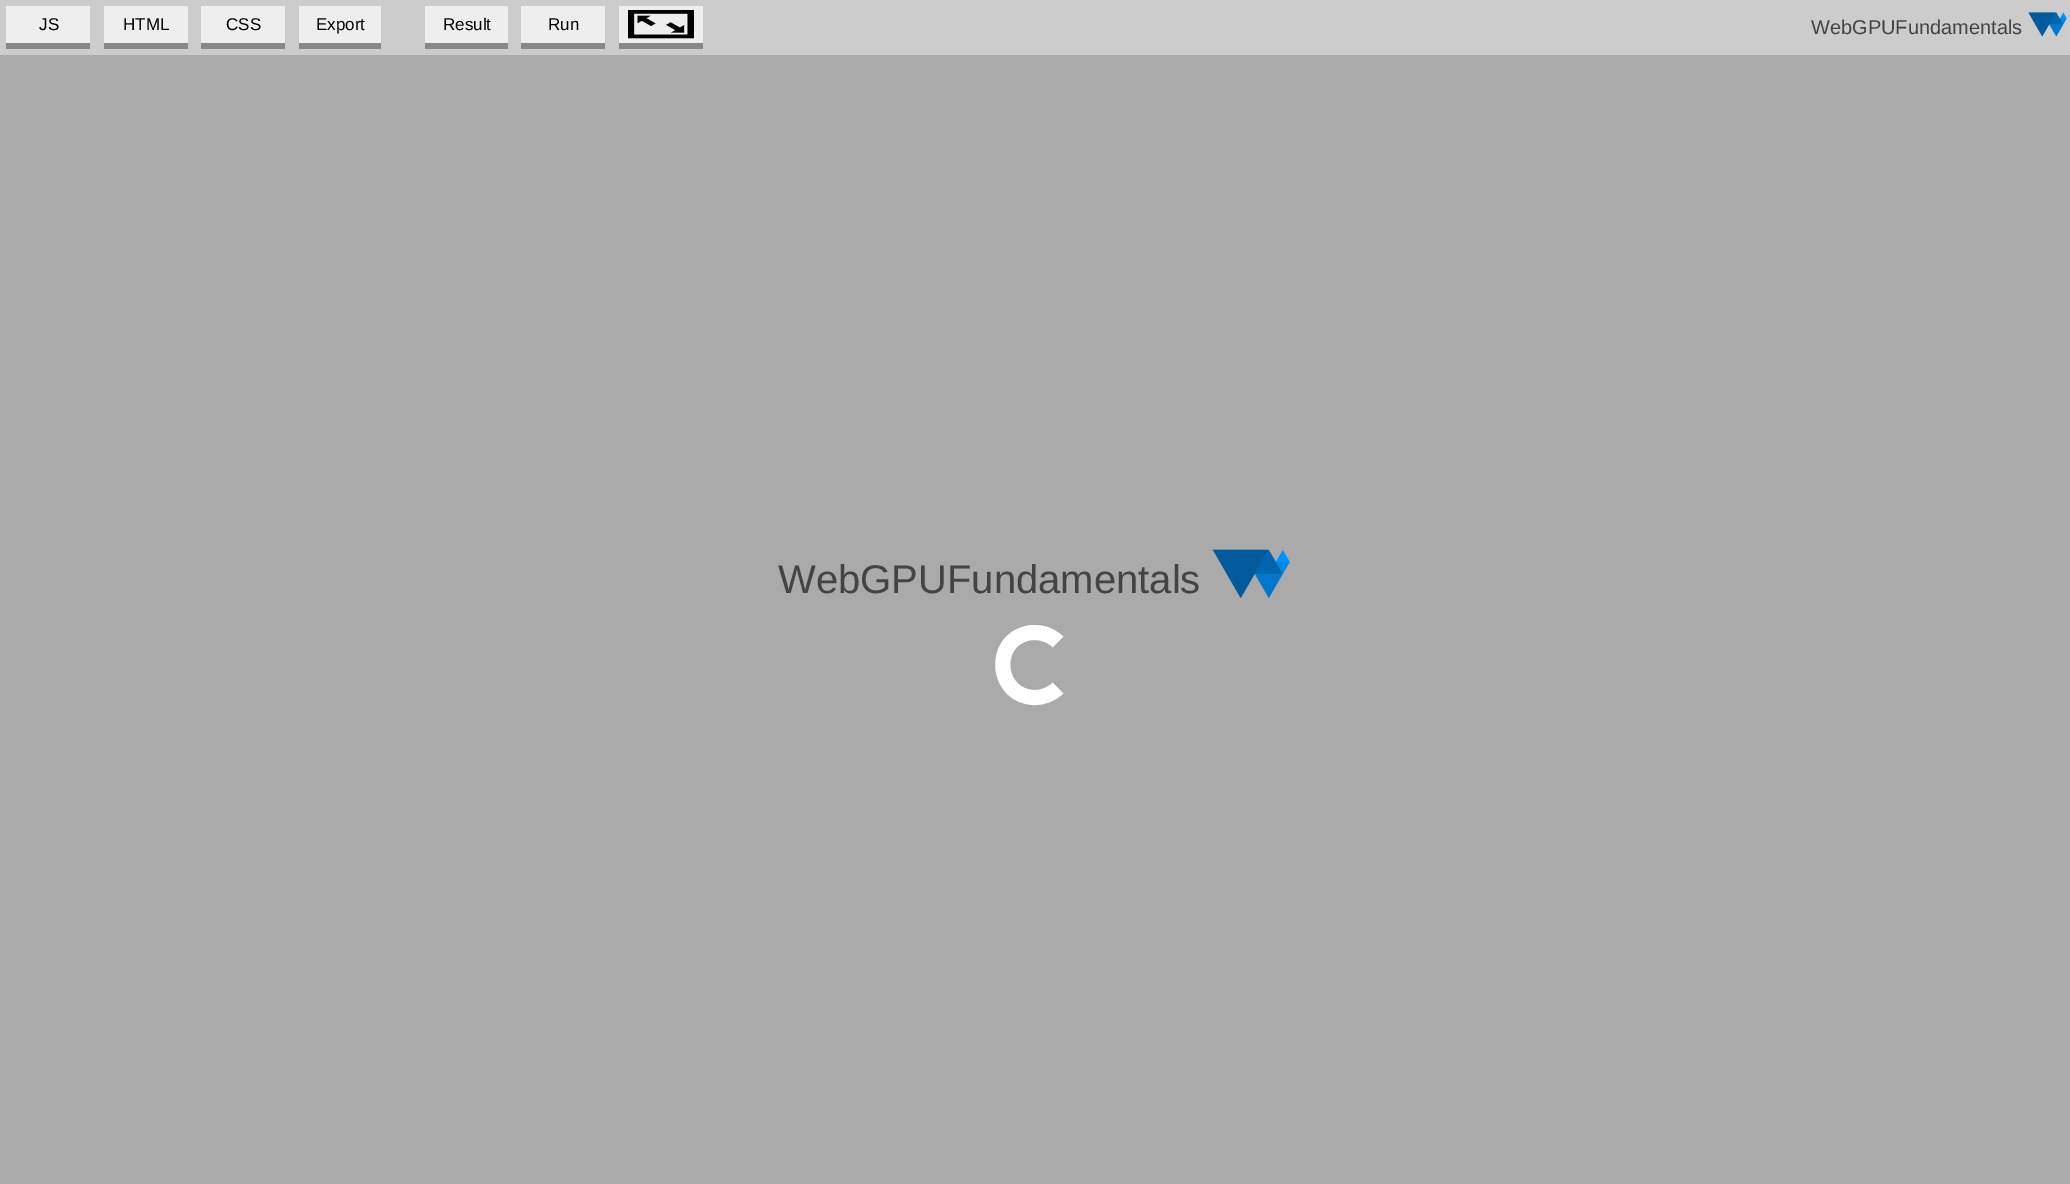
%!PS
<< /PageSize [2070 1184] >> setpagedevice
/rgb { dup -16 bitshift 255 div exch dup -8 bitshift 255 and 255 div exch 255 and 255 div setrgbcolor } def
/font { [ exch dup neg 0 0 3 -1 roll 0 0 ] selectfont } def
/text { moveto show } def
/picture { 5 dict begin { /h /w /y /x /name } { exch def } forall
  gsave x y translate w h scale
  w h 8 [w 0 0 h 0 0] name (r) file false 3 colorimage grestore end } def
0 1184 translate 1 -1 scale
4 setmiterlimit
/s1 { /LiberationSans-Regular 17 font 16#000000 rgb } def
/s2 { /LiberationSans-Regular 20 font 16#444444 rgb } def
/s3 { /LiberationSans-Regular 40 font 16#444444 rgb } def
16#AAAAAA rgb
0 0 2070 1184 rectfill
16#CCCCCC rgb
0 0 2070 55 rectfill
16#EEEEEE rgb
6 6 84 37 rectfill
16#888888 rgb
6 43 84 6 rectfill
s1
(JS) 39 30 text
16#EEEEEE rgb
104 6 84 37 rectfill
16#888888 rgb
104 43 84 6 rectfill
s1
(HTML) 123 30 text
16#EEEEEE rgb
201 6 84 37 rectfill
16#888888 rgb
201 43 84 6 rectfill
s1
(CSS) 226 30 text
16#EEEEEE rgb
299 6 82 37 rectfill
16#888888 rgb
299 43 82 6 rectfill
s1
(Export) 316 30 text
16#EEEEEE rgb
425 6 83 37 rectfill
16#888888 rgb
425 43 83 6 rectfill
s1
(Result) 443 30 text
16#EEEEEE rgb
521 6 84 37 rectfill
16#888888 rgb
521 43 84 6 rectfill
s1
(Run) 548 30 text
16#EEEEEE rgb
619 6 84 37 rectfill
(pic1.raw) 628 10 66 29 picture
16#888888 rgb
619 43 84 6 rectfill
s2
(WebGPUFundamentals) 1811 34 text
(pic2.raw) 2028 12 39 25 picture
s3
(WebGPUFundamentals) 778 593 text
(pic3.raw) 1212 549 78 49 picture
16#FFFFFF rgb
15 setlinewidth
1058 688 moveto 1052 694 1043.5 697.5 1035 697.5 curveto 996 697.5 990.5 640.5 1028.5 633 curveto 1039 631 1050.5 634.5 1058 642 curveto stroke
showpage
